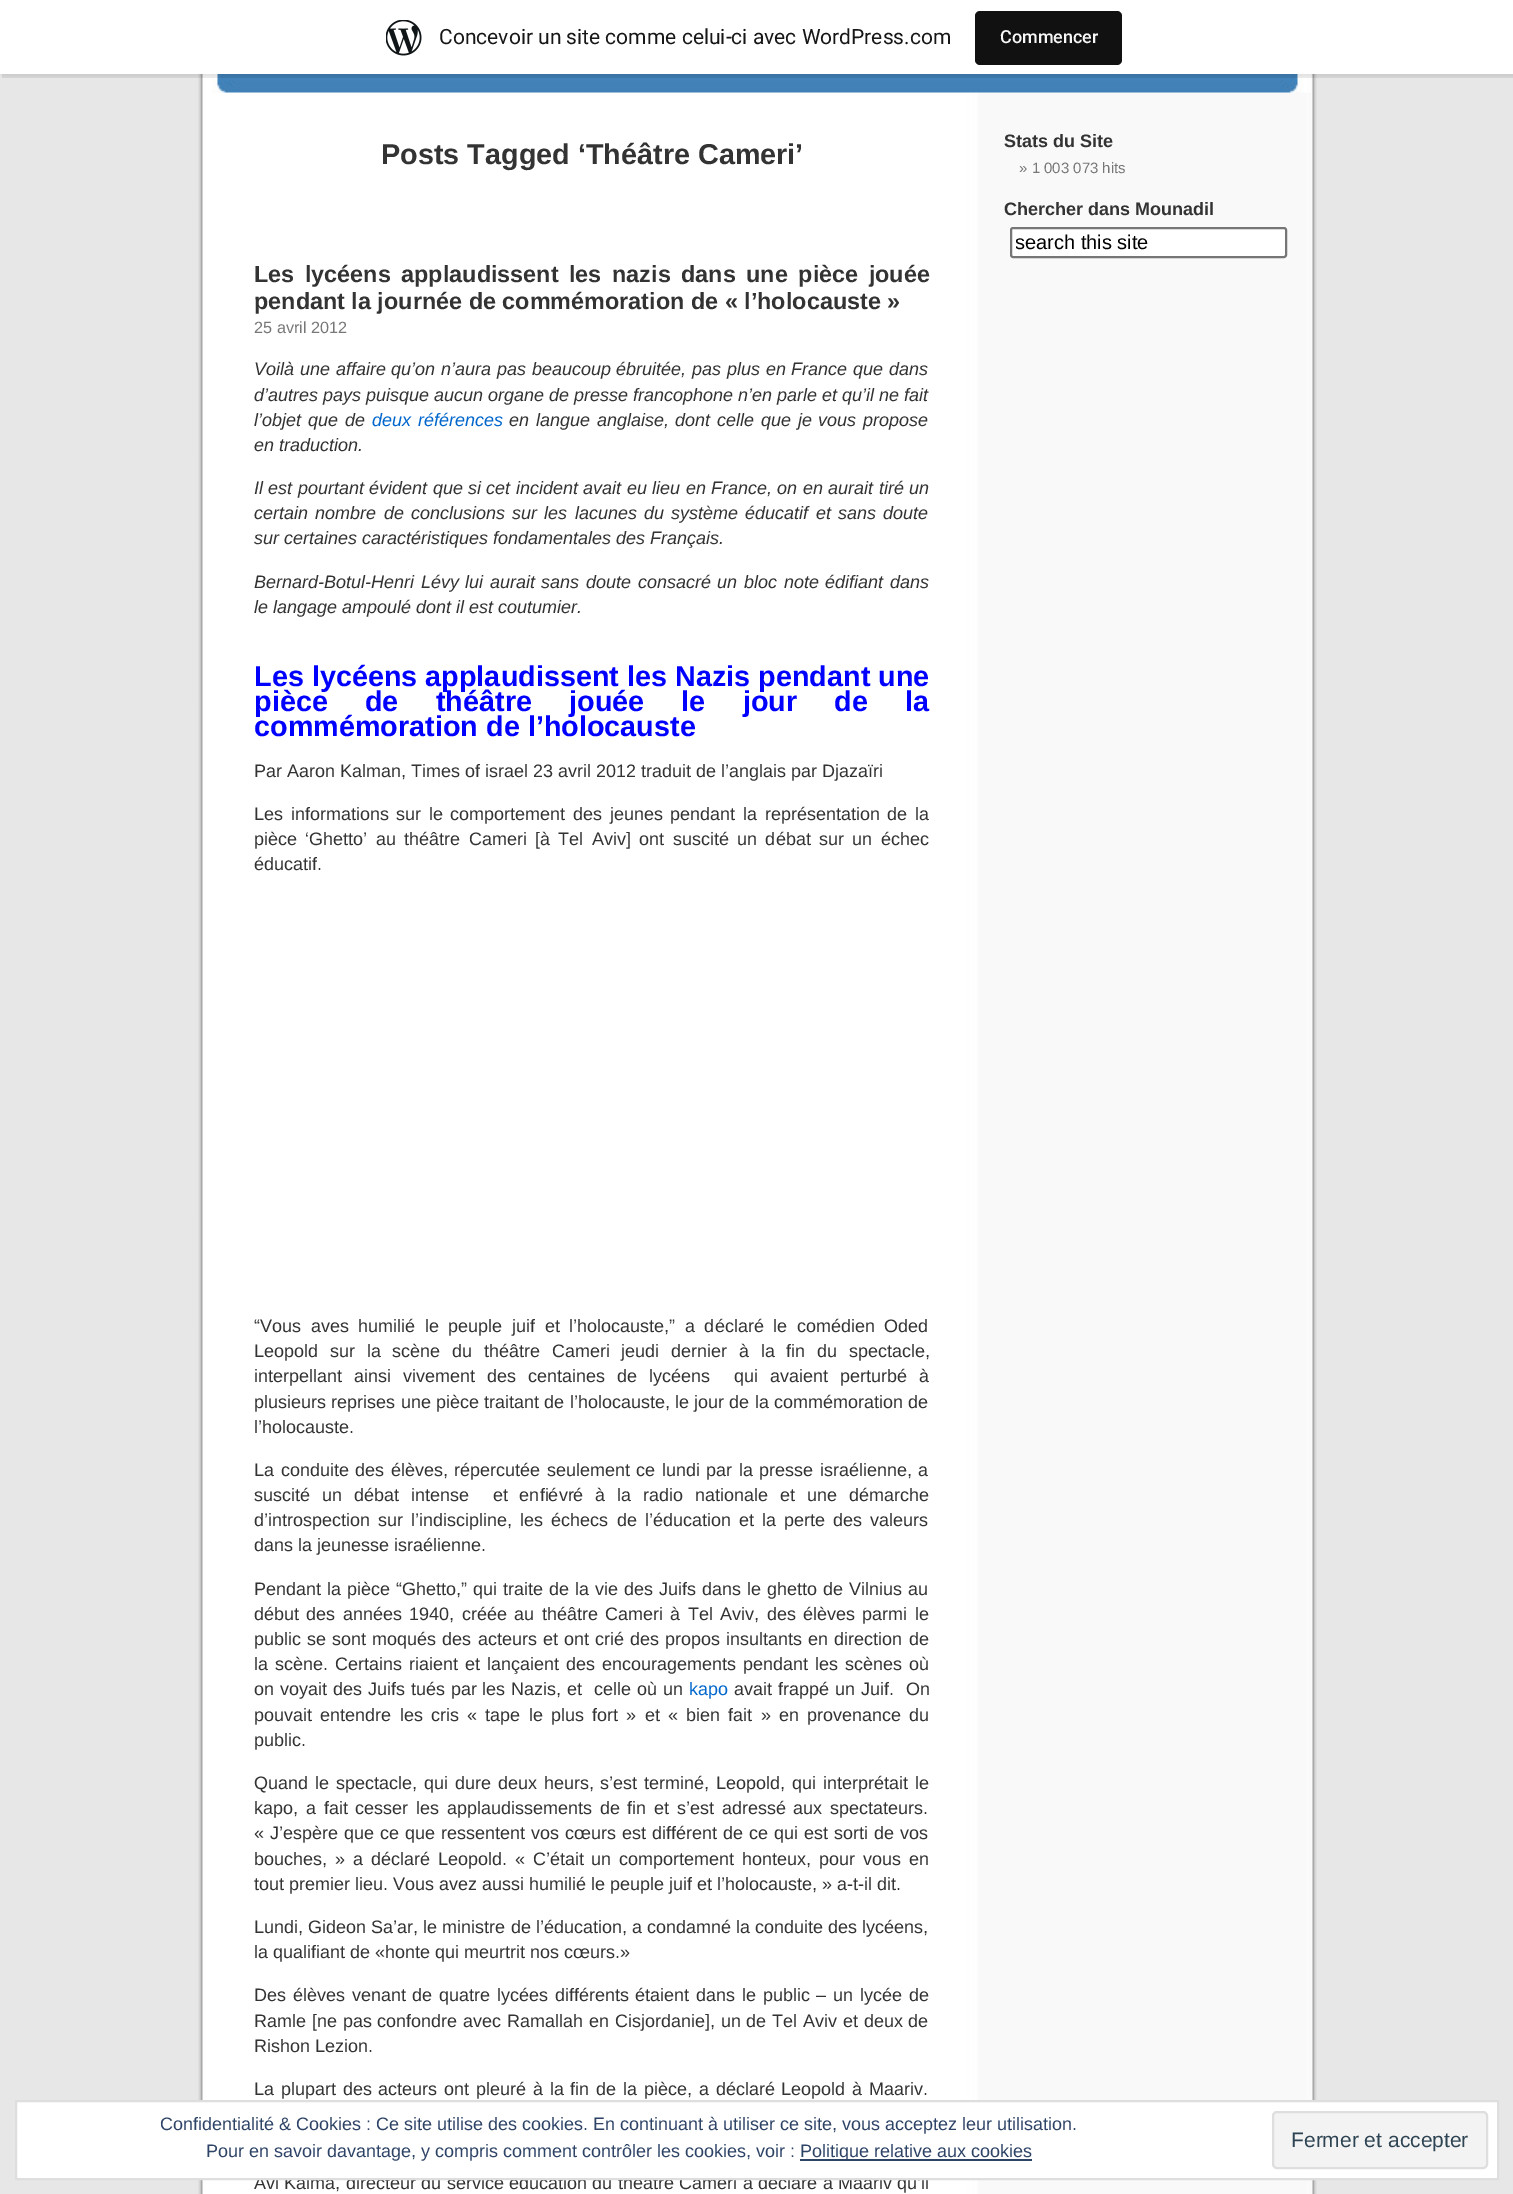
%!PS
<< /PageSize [1513 2194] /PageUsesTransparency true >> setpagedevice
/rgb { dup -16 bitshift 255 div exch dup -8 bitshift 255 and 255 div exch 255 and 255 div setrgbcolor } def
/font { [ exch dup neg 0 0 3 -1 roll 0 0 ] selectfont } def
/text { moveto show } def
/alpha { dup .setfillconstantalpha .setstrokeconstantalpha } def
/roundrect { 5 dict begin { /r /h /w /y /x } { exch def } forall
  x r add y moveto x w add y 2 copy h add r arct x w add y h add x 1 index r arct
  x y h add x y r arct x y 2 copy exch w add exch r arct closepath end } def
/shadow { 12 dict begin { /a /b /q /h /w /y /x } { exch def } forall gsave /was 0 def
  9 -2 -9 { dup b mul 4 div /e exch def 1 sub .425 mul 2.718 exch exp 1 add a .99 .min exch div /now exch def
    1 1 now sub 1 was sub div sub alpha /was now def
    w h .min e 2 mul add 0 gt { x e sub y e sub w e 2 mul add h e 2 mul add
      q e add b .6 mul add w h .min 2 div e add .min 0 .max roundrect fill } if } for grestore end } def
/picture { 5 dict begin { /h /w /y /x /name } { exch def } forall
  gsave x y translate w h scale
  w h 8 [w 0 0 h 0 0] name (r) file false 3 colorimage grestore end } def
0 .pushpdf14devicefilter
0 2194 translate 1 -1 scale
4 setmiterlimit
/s1 { /Roboto-Regular 21 font 16#171717 rgb } def
/s2 { /Roboto-Medium 18 font 16#F6F7F7 rgb } def
/s3 { /LiberationSans-Bold 28.8 font 16#333333 rgb } def
/s4 { /LiberationSans-Bold 23.4 font 16#333333 rgb } def
/s5 { /LiberationSans-Regular 16.25 font 16#777777 rgb } def
/s6 { /LiberationSans-Italic 18 font 16#333333 rgb } def
/s7 { /LiberationSans-Bold 28.8 font 16#0000FF rgb } def
/s8 { /LiberationSans-Regular 18 font 16#333333 rgb } def
/s9 { /LiberationSans-Regular 18 font 16#0066CC rgb } def
/s10 { /LiberationSans-Bold 18 font 16#333333 rgb } def
/s11 { /LiberationSans-Regular 15 font 16#777777 rgb } def
/s12 { /LiberationSans-Regular 20 font 16#000000 rgb } def
/s13 { /LiberationSans-Regular 18 font 16#2E4467 rgb } def
/s14 { /LiberationSans-Regular 21 font 16#2E4453 rgb } def
16#E7E7E7 rgb
0 0 1513 2194 rectfill
(pic2.raw) 198 74 1119 2120 picture
(pic3.raw) 212 74 1099 19 picture
16#000000 rgb
0 2 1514 73 0 1.5 0.05 shadow
0.08 alpha
2 74 moveto 2 78 lineto 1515 78 lineto 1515 5 lineto 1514 5 lineto 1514 74 lineto closepath fill
1 alpha
16#FFFFFF rgb
0 0 1513 74 rectfill
(pic1.raw) 386 20 36 36 picture
s1
(Concevoir un site comme celui-ci avec WordPress.com) 439 44 text
16#111111 rgb
975 11 147 54 5 roundrect fill
s2
(Commencer) 1000 43 text
s3
(Posts Tagged ‘Théâtre Cameri’) 381 164 text
/LiberationSans-Bold 23.4 font
254 282 moveto 4 0 32 (Les lycéens applaudissent les nazis dans une pièce jouée) widthshow
(pendant la journée de commémoration de « l’holocauste ») 254 309 text
s5
(25 avril 2012) 254 333 text
/LiberationSans-Italic 18 font
16#333333 rgb
254 375 moveto 0.75 0 32 (Voilà une affaire qu’on n’aura pas beaucoup ébruitée, pas plus en France que dans) widthshow
(d’autres pays puisque aucun organe de presse francophone n’en parle et qu’il ne fait) 254 401 text
254 426 moveto 1.75 0 32 (l’objet que de) widthshow
16#0066CC rgb
372 426 moveto 2 0 32 (deux références) widthshow
16#333333 rgb
509 426 moveto 1.75 0 32 (en langue anglaise, dont celle que je vous propose) widthshow
(en traduction.) 254 451 text
254 494 moveto 0.4 0 32 (Il est pourtant évident que si cet incident avait eu lieu en France, on en aurait tiré un) widthshow
254 519 moveto 2.25 0 32 (certain nombre de conclusions sur les lacunes du système éducatif et sans doute) widthshow
(sur certaines caractéristiques fondamentales des Français.) 254 544 text
254 588 moveto 1.6 0 32 (Bernard-Botul-Henri Lévy lui aurait sans doute consacré un bloc note édifiant dans) widthshow
(le langage ampoulé dont il est coutumier.) 254 613 text
s7
(Les lycéens applaudissent les Nazis pendant une) 254 686 text
254 711 moveto 29.25 0 32 (pièce de théâtre jouée le jour de la) widthshow
(commémoration de l’holocauste) 254 736 text
s8
(Par Aaron Kalman, Times of israel 23 avril 2012 traduit de l’anglais par Djazaïri) 254 777 text
254 820 moveto 2.6 0 32 (Les informations sur le comportement des jeunes pendant la représentation de la) widthshow
254 845 moveto 3.4 0 32 (pièce ‘Ghetto’ au théâtre Cameri [à Tel Aviv] ont suscité un débat sur un échec) widthshow
(éducatif.) 254 870 text
254 1332 moveto 4.6 0 32 (“Vous aves humilié le peuple juif et l’holocauste,” a déclaré le comédien Oded) widthshow
254 1357 moveto 6.75 0 32 (Leopold sur la scène du théâtre Cameri jeudi dernier à la fin du spectacle,) widthshow
254 1382 moveto 7 0 32 (interpellant ainsi vivement des centaines de lycéens  qui avaient perturbé à) widthshow
254 1408 moveto 0.25 0 32 (plusieurs reprises une pièce traitant de l’holocauste, le jour de la commémoration de) widthshow
(l’holocauste.) 254 1433 text
254 1476 moveto 1.5 0 32 (La conduite des élèves, répercutée seulement ce lundi par la presse israélienne, a) widthshow
254 1501 moveto 6.9 0 32 (suscité un débat intense  et enfiévré à la radio nationale et une démarche) widthshow
254 1526 moveto 3.1 0 32 (d’introspection sur l’indiscipline, les échecs de l’éducation et la perte des valeurs) widthshow
(dans la jeunesse israélienne.) 254 1551 text
254 1595 moveto 1 0 32 (Pendant la pièce “Ghetto,” qui traite de la vie des Juifs dans le ghetto de Vilnius au) widthshow
254 1620 moveto 2.4 0 32 (début des années 1940, créée au théâtre Cameri à Tel Aviv, des élèves parmi le) widthshow
254 1645 moveto 1.1 0 32 (public se sont moqués des acteurs et ont crié des propos insultants en direction de) widthshow
254 1670 moveto 2 0 32 (la scène. Certains riaient et lançaient des encouragements pendant les scènes où) widthshow
254 1695 moveto 0.9 0 32 (on voyait des Juifs tués par les Nazis, et  celle où un) widthshow
s9
(kapo) 689 1695 text
16#333333 rgb
734 1695 moveto 0.9 0 32 (avait frappé un Juif.  On) widthshow
254 1721 moveto 3.25 0 32 (pouvait entendre les cris « tape le plus fort » et « bien fait » en provenance du) widthshow
(public.) 254 1746 text
254 1789 moveto 1.9 0 32 (Quand le spectacle, qui dure deux heurs, s’est terminé, Leopold, qui interprétait le) widthshow
254 1814 moveto 2.75 0 32 (kapo, a fait cesser les applaudissements de fin et s’est adressé aux spectateurs.) widthshow
254 1839 moveto 1 0 32 (« J’espère que ce que ressentent vos cœurs est différent de ce qui est sorti de vos) widthshow
254 1865 moveto 2.9 0 32 (bouches, » a déclaré Leopold. « C’était un comportement honteux, pour vous en) widthshow
(tout premier lieu. Vous avez aussi humilié le peuple juif et l’holocauste, » a-t-il dit.) 254 1890 text
254 1933 moveto 0.1 0 32 (Lundi, Gideon Sa’ar, le ministre de l’éducation, a condamné la conduite des lycéens,) widthshow
(la qualifiant de «honte qui meurtrit nos cœurs.») 254 1958 text
254 2001 moveto 1.75 0 32 (Des élèves venant de quatre lycées différents étaient dans le public – un lycée de) widthshow
254 2027 moveto 0.8 0 32 (Ramle [ne pas confondre avec Ramallah en Cisjordanie], un de Tel Aviv et deux de) widthshow
(Rishon Lezion.) 254 2052 text
254 2095 moveto 1.8 0 32 (La plupart des acteurs ont pleuré à la fin de la pièce, a déclaré Leopold à Maariv.) widthshow
254 2189 moveto 0.4 0 32 (Avi Kalma, directeur du service éducation du théâtre Cameri a déclaré à Maariv qu’il) widthshow
s10
(Stats du Site) 1004 147 text
s11
(» 1 003 073 hits) 1019 173 text
s10
(Chercher dans Mounadil) 1004 215 text
16#FFFFFF rgb
1011 228 275 29 2 roundrect gsave fill grestore
16#767676 rgb
2 setlinewidth
stroke
gsave
1016 231 265 23 rectclip
s12
(search this site) 1015 249 text
grestore
16#FFFFFF rgb
16 2101 moveto 1498 2101 lineto 1498 2179 lineto 16 2179 lineto closepath gsave fill grestore
16#DEDEDE rgb
stroke
s13
(Confidentialité & Cookies : Ce site utilise des cookies. En continuant à utiliser ce site, vous acceptez leur utilisation.) 160 2130 text
(Pour en savoir davantage, y compris comment contrôler les cookies, voir :) 206 2157 text
800 2159 232 2 rectfill
(Politique relative aux cookies) 800 2157 text
16#F3F3F3 rgb
1273 2112 214 56 4 roundrect gsave fill grestore
16#DEDEDE rgb
stroke
s14
(Fermer et accepter) 1291 2147 text
.poppdf14devicefilter showpage
